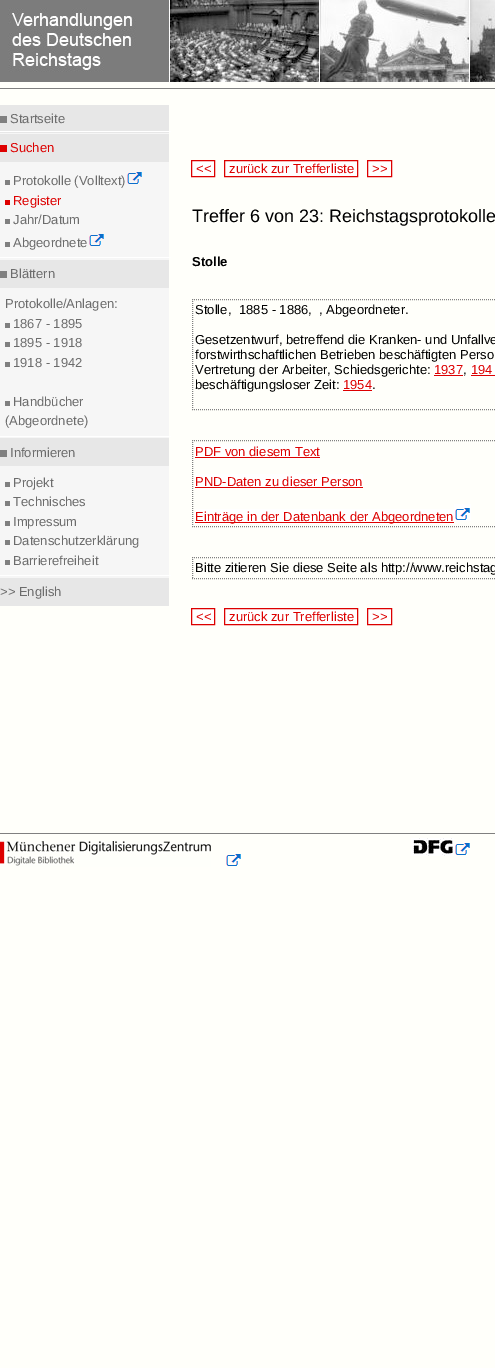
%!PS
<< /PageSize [495 1368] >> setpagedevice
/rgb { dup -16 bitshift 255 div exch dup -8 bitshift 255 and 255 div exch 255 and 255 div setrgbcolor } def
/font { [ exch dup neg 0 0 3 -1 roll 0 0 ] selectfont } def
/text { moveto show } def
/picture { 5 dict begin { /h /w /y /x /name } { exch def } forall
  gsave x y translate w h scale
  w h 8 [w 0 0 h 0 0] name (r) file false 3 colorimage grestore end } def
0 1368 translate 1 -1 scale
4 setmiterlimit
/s1 { /LiberationSans-Regular 13 font 16#6C6C6C rgb } def
/s2 { /LiberationSans-Regular 13 font 16#DD0000 rgb } def
/s3 { /LiberationSans-Regular 18 font 16#000000 rgb } def
/s4 { /LiberationSans-Bold 13 font 16#000000 rgb } def
/s5 { /LiberationSans-Regular 13 font 16#000000 rgb } def
16#FFFFFA rgb
0 0 495 1368 rectfill
(pic1.raw) 0 0 495 82 picture
16#808080 rgb
0 88 495 1 rectfill
16#F6F6F6 rgb
0 133 169 445 rectfill
16#E7E7E7 rgb
0 105 169 28 rectfill
16#808080 rgb
0 116 7 7 rectfill
s1
(Startseite) 10 123 text
16#FFFFFF rgb
0 131 171 1 rectfill
16#E7E7E7 rgb
0 134 169 28 rectfill
16#DE0000 rgb
0 145 7 7 rectfill
s2
(Suchen) 10 152 text
16#808080 rgb
5 180 5 5 rectfill
s1
(Protokolle \(Volltext\)) 13 185 text
(pic2.raw) 127 172 15 12 picture
16#DE0000 rgb
5 200 5 5 rectfill
s2
(Register) 13 205 text
16#808080 rgb
5 219 5 5 rectfill
s1
(Jahr/Datum) 13 224 text
16#808080 rgb
5 242 5 5 rectfill
s1
(Abgeordnete) 13 247 text
(pic2.raw) 89 234 15 12 picture
16#FFFFFF rgb
0 257 171 1 rectfill
16#E7E7E7 rgb
0 260 169 28 rectfill
16#808080 rgb
0 271 7 7 rectfill
s1
(Blättern) 10 278 text
(Protokolle/Anlagen:) 5 308 text
16#808080 rgb
5 323 5 5 rectfill
s1
(1867 - 1895) 13 328 text
16#808080 rgb
5 342 5 5 rectfill
s1
(1895 - 1918) 13 347 text
16#808080 rgb
5 362 5 5 rectfill
s1
(1918 - 1942) 13 367 text
16#808080 rgb
5 401 5 5 rectfill
s1
(Handbücher) 13 406 text
(\(Abgeordnete\)) 5 425 text
16#FFFFFF rgb
0 436 171 1 rectfill
16#E7E7E7 rgb
0 438 169 28 rectfill
16#808080 rgb
0 450 7 7 rectfill
s1
(Informieren) 10 457 text
16#808080 rgb
5 482 5 5 rectfill
s1
(Projekt) 13 487 text
16#808080 rgb
5 501 5 5 rectfill
s1
(Technisches) 13 506 text
16#808080 rgb
5 521 5 5 rectfill
s1
(Impressum) 13 526 text
16#808080 rgb
5 540 5 5 rectfill
s1
(Datenschutzerklärung) 13 545 text
16#808080 rgb
5 560 5 5 rectfill
s1
(Barrierefreiheit) 13 565 text
16#FFFFFF rgb
0 575 171 1 rectfill
16#E7E7E7 rgb
0 578 169 28 rectfill
s1
(>> English) 0 596 text
16#FFFFFF rgb
192 161 22 15 rectfill
s2
(<<) 196 173 text
191.5 160.5 23 16 rectstroke
16#FFFFFF rgb
225 161 132 15 rectfill
s2
(zurück zur Trefferliste) 229 173 text
224.5 160.5 133 16 rectstroke
16#FFFFFF rgb
368 161 23 15 rectfill
s2
(>>) 372 173 text
367.5 160.5 24 16 rectstroke
s3
(Treffer 6 von 23: Reichstagsprotokolle) 192 222 text
s4
(Stolle) 192 266 text
16#808080 rgb
[1 1] 0 setdash
192 299.5 moveto 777 299.5 lineto stroke
192 409.5 moveto 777 409.5 lineto stroke
192.5 299 moveto 192.5 410 lineto stroke
s5
(Stolle,) 195 314 text
(1885 - 1886,) 239 314 text
(, Abgeordneter.) 319 314 text
(Gesetzentwurf, betreffend die Kranken- und Unfallve) 195 344 text
(forstwirthschaftlichen Betrieben beschäftigten Perso) 195 359 text
(Vertretung der Arbeiter, Schiedsgerichte:) 195 374 text
16#FFFFFF rgb
434 362 29 15 rectfill
s2
(1937) 434 374 text
434 375 29 1 rectfill
s5
(,) 463 374 text
16#FFFFFF rgb
471 362 24 15 rectfill
s2
(194) 471 374 text
471 375 24 1 rectfill
s5
(beschäftigungsloser Zeit:) 195 389 text
16#FFFFFF rgb
343 377 29 15 rectfill
s2
(1954) 343 389 text
343 390 29 1 rectfill
s5
(.) 372 389 text
16#808080 rgb
192 440.5 moveto 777 440.5 lineto stroke
192 526.5 moveto 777 526.5 lineto stroke
192.5 440 moveto 192.5 527 lineto stroke
16#FFFFFF rgb
195 444 125 15 rectfill
s2
(PDF von diesem Text) 195 456 text
195 457 125 1 rectfill
16#FFFFFF rgb
195 474 168 15 rectfill
s2
(PND-Daten zu dieser Person) 195 486 text
195 487 168 1 rectfill
16#FFFFFF rgb
195 509 259 15 rectfill
16#DD0000 rgb
195 522 259 1 rectfill
(Einträge in der Datenbank der Abgeordneten) 195 521 text
16#FFFFFF rgb
454 504 17 17 rectfill
(pic3.raw) 455 508 15 12 picture
16#808080 rgb
192 557.5 moveto 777 557.5 lineto stroke
192 578.5 moveto 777 578.5 lineto stroke
192.5 557 moveto 192.5 579 lineto stroke
s5
(Bitte zitieren Sie diese Seite als http://www.reichstag) 195 572 text
16#FFFFFF rgb
192 609 22 15 rectfill
s2
(<<) 196 621 text
[] 0 setdash
191.5 608.5 23 16 rectstroke
16#FFFFFF rgb
225 609 132 15 rectfill
s2
(zurück zur Trefferliste) 229 621 text
224.5 608.5 133 16 rectstroke
16#FFFFFF rgb
368 609 23 15 rectfill
s2
(>>) 372 621 text
367.5 608.5 24 16 rectstroke
16#808080 rgb
0 833 495 1 rectfill
(pic4.raw) 0 841 211 26 picture
(pic5.raw) 411 838 43 18 picture
(pic6.raw) 455 843 15 12 picture
(pic6.raw) 226 854 15 12 picture
showpage
